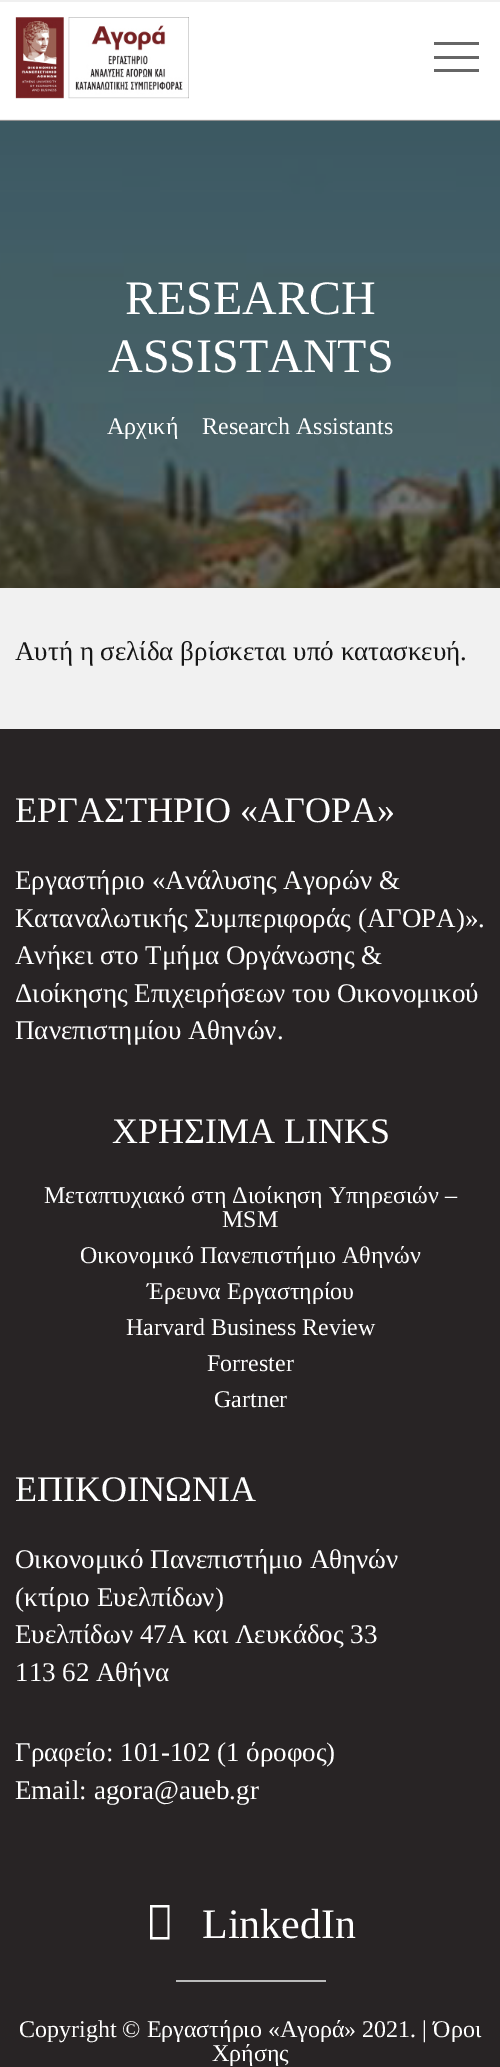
%!PS
<< /PageSize [500 2067] /PageUsesTransparency true >> setpagedevice
/rgb { dup -16 bitshift 255 div exch dup -8 bitshift 255 and 255 div exch 255 and 255 div setrgbcolor } def
/font { [ exch dup neg 0 0 3 -1 roll 0 0 ] selectfont } def
/text { moveto show } def
/alpha { dup .setfillconstantalpha .setstrokeconstantalpha } def
/picture { 5 dict begin { /h /w /y /x /name } { exch def } forall
  gsave x y translate w h scale
  w h 8 [w 0 0 h 0 0] name (r) file false 3 colorimage grestore end } def
0 .pushpdf14devicefilter
0 2067 translate 1 -1 scale
4 setmiterlimit
/s1 { /LiberationSerif-Regular 48 font 16#FFFFFF rgb } def
/s2 { /LiberationSerif-Regular 24 font 16#FFFFFF rgb } def
/s3 { /LiberationSerif-Regular 27 font 16#161616 rgb } def
/s4 { /LiberationSerif-Regular 36 font 16#FFFFFF rgb } def
/s5 { /LiberationSerif-Regular 27 font 16#FFFFFF rgb } def
/s6 { /LiberationSerif-Regular 42 font 16#FFFFFF rgb } def
16#FFFFFF rgb
0 0 500 2067 rectfill
(pic1.raw) 0 121 500 467 picture
16#F0F0F0 rgb
0 0 500 2 rectfill
0 119 500 2 rectfill
(pic2.raw) 15 17 174 82 picture
16#666666 rgb
434 42 45 3 rectfill
434 69 45 3 rectfill
434 56 45 3 rectfill
0.4 alpha
16#000000 rgb
0 120 500 468 rectfill
1 alpha
s1
(RESEARCH) 125 314 text
(ASSISTANTS) 108 372 text
s2
(Αρχική) 107 434 text
(Research Assistants) 202 434 text
16#F1F1F1 rgb
0 588 500 141 rectfill
s3
(Αυτή η σελίδα βρίσκεται υπό κατασκευή.) 15 660 text
16#282425 rgb
0 729 500 1338 rectfill
s4
(ΕΡΓΑΣΤΗΡΙΟ «ΑΓΟΡΑ») 15 822 text
s5
(Εργαστήριο «Ανάλυσης Αγορών &) 15 889 text
(Καταναλωτικής Συμπεριφοράς \(ΑΓΟΡΑ\)».) 15 927 text
(Ανήκει στο Τμήμα Οργάνωσης &) 15 964 text
(Διοίκησης Επιχειρήσεων του Οικονομικού) 15 1002 text
(Πανεπιστημίου Αθηνών.) 15 1039 text
s4
(ΧΡΗΣΙΜΑ LINKS) 112 1143 text
s2
(Μεταπτυχιακό στη Διοίκηση Υπηρεσιών –) 44 1203 text
(MSM) 222 1227 text
(Οικονομικό Πανεπιστήμιο Αθηνών) 80 1263 text
(Έρευνα Εργαστηρίου) 147 1299 text
(Harvard Business Review) 126 1335 text
(Forrester) 207 1371 text
(Gartner) 214 1407 text
s4
(ΕΠΙΚΟΙΝΩΝΙΑ) 15 1501 text
s5
(Οικονομικό Πανεπιστήμιο Αθηνών) 15 1568 text
(\(κτίριο Ευελπίδων\)) 15 1606 text
(Ευελπίδων 47A και Λευκάδος 33) 15 1643 text
(113 62 Αθήνα) 15 1681 text
(Γραφείο: 101-102 \(1 όροφος\)) 15 1761 text
(Email: agora@aueb.gr) 15 1799 text
150 1939.5 moveto 150 1905 lineto 169.5 1905 lineto 169.5 1939.5 lineto closepath 152.5 1937 moveto 167.5 1937 lineto 167.5 1907.5 lineto 152.5 1907.5 lineto closepath fill
s6
(LinkedIn) 202 1938 text
16#BBBBBB rgb
176 1980 150 2 rectfill
s2
(Copyright © Εργαστήριο «Αγορά» 2021. | Όροι) 19 2037 text
(Χρήσης) 212 2061 text
.poppdf14devicefilter showpage
